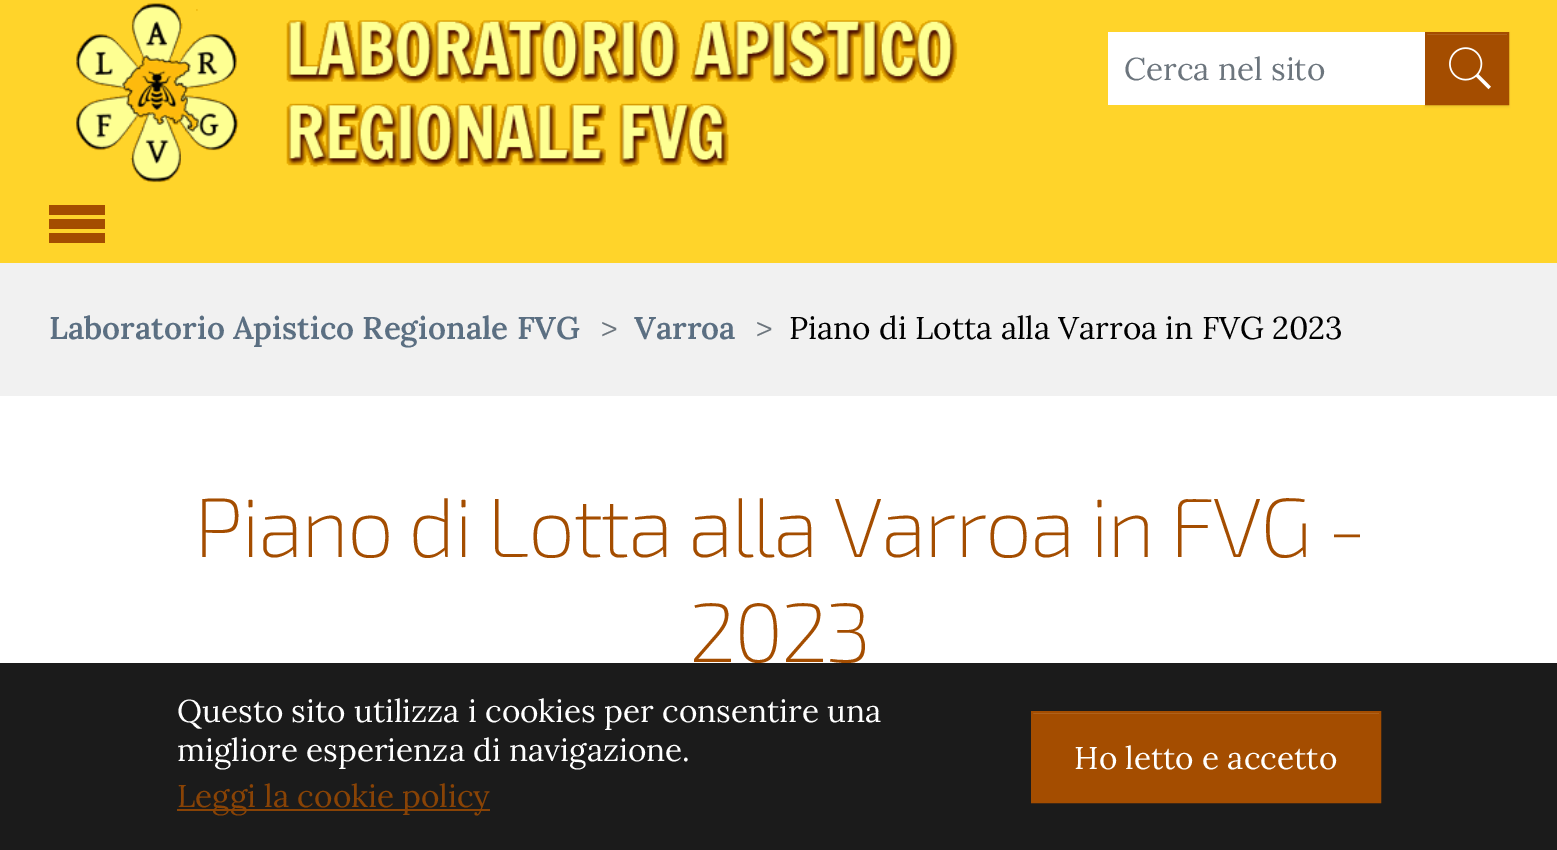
%!PS
<< /PageSize [1557 850] /PageUsesTransparency true >> setpagedevice
/rgb { dup -16 bitshift 255 div exch dup -8 bitshift 255 and 255 div exch 255 and 255 div setrgbcolor } def
/font { [ exch dup neg 0 0 3 -1 roll 0 0 ] selectfont } def
/text { moveto show } def
/alpha { dup .setfillconstantalpha .setstrokeconstantalpha } def
/roundrect { 5 dict begin { /r /h /w /y /x } { exch def } forall
  x r add y moveto x w add y 2 copy h add r arct x w add y h add x 1 index r arct
  x y h add x y r arct x y 2 copy exch w add exch r arct closepath end } def
/shadow { 12 dict begin { /a /b /q /h /w /y /x } { exch def } forall gsave /was 0 def
  9 -2 -9 { dup b mul 4 div /e exch def 1 sub .425 mul 2.718 exch exp 1 add a .99 .min exch div /now exch def
    1 1 now sub 1 was sub div sub alpha /was now def
    w h .min e 2 mul add 0 gt { x e sub y e sub w e 2 mul add h e 2 mul add
      q e add b .6 mul add w h .min 2 div e add .min 0 .max roundrect fill } if } for grestore end } def
/picture { 5 dict begin { /h /w /y /x /name } { exch def } forall
  gsave x y translate w h scale
  w h 8 [w 0 0 h 0 0] name (r) file false 3 colorimage grestore end } def
0 .pushpdf14devicefilter
0 850 translate 1 -1 scale
4 setmiterlimit
/s1 { /Lora-Regular 31.5 font 16#6C757D rgb } def
/s2 { /Lora-SemiBold 31.5 font 16#5B6F82 rgb } def
/s3 { /Lora-Regular 31.5 font 16#000000 rgb } def
/s4 { /Lora-Regular 31.5 font 16#FFFFFF rgb } def
/s5 { /Lora-Regular 31.5 font 16#894305 rgb } def
16#FFFFFF rgb
0 0 1557 850 rectfill
16#FFD42A rgb
0 0 1557 263 rectfill
(pic1.raw) 76 3 882 180 picture
16#000000 rgb
1425 33 84 74 0 1 0.07 shadow
16#FFFFFF rgb
1108 32 317 73 rectfill
s1
(Cerca nel sito) 1124 80 text
16#A44D00 rgb
1427 35 80 68 rectfill
16#B26826 rgb
1426 34 81 1 rectfill
16#A44D00 rgb
2 setlinewidth
1426 33 82 71 rectstroke
(pic2.raw) 1449 47 42 43 picture
49 219 56 10 rectfill
49 205 56 10 rectfill
49 233 56 10 rectfill
16#F1F1F1 rgb
0 263 1557 133 rectfill
s2
(Laboratorio Apistico Regionale FVG) 49 339 text
s1
(>) 601 339 text
s2
(Varroa) 634 339 text
s1
(>) 756 339 text
s3
(Piano di Lotta alla Varroa in FVG 2023) 789 339 text
/Exo2-ExtraLight 84 font
16#A44D00 rgb
194 557 moveto -2.25 0 (Piano di Lotta alla Varroa in FVG -) ashow
689 662 moveto -2.25 0 (2023) ashow
16#1B1B1B rgb
0 663 1557 187 rectfill
s4
(Questo sito utilizza i cookies per consentire una) 177 722 text
(migliore esperienza di navigazione.) 177 761 text
16#894305 rgb
177 809 313 2 rectfill
(Leggi la cookie policy) 177 807 text
16#A44D00 rgb
1033 714 346 87 rectfill
16#B26826 rgb
1033 713 346 1 rectfill
16#A44D00 rgb
1032 712 348 90 rectstroke
s4
(Ho letto e accetto) 1074 769 text
.poppdf14devicefilter showpage
